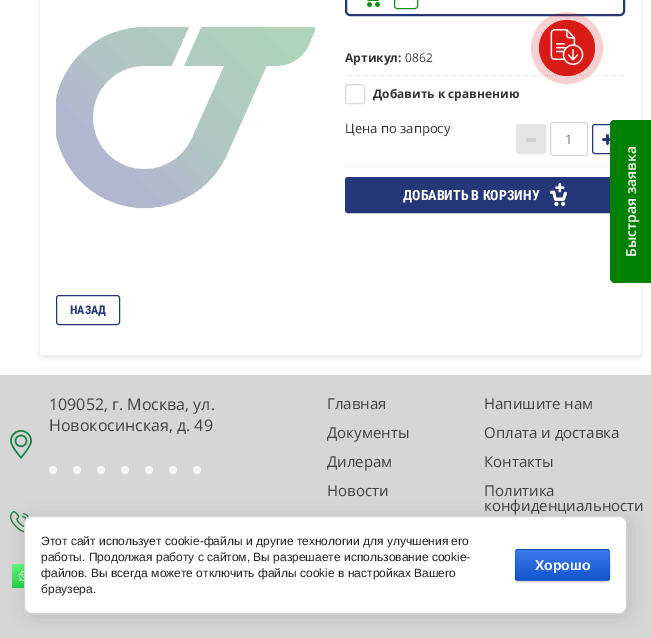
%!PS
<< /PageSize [651 638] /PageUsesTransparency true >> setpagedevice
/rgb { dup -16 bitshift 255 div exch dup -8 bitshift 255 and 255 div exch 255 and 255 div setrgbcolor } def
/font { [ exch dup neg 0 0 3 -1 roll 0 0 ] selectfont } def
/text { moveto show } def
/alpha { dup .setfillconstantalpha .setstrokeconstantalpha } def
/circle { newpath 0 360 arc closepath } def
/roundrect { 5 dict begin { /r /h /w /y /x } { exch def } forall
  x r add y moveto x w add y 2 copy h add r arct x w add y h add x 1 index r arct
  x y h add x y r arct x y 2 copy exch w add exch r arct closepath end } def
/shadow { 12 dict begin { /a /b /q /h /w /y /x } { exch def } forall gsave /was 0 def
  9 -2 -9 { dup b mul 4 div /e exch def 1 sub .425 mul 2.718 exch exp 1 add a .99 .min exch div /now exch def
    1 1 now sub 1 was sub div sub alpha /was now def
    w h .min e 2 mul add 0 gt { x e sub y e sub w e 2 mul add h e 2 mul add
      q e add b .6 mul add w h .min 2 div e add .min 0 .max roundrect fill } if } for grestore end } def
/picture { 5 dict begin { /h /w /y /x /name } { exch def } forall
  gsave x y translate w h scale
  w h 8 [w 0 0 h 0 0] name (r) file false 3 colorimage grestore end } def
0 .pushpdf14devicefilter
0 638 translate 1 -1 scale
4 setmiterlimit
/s1 { /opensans-Bold 12 font 16#333333 rgb } def
/s2 { /opensans-Regular 12 font 16#424242 rgb } def
/s3 { /opensans-Regular 13 font 16#333333 rgb } def
/s4 { /opensans-Regular 13 font 16#777777 rgb } def
/s5 { /RobotoCondensed-Bold 14 font 16#FFFFFF rgb } def
/s6 { /RobotoCondensed-Bold 12 font 16#243879 rgb } def
/s7 { /opensans-Regular 16 font 16#424242 rgb } def
/s8 { /opensans-Regular 15 font 16#424242 rgb } def
/s9 { /LiberationSans-Regular 12 font 16#212121 rgb } def
/s10 { /LiberationSans-Bold 14 font 16#FFFFFF rgb } def
16#FFFFFF rgb
0 0 651 638 rectfill
16#000000 rgb
40 -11 601 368 3 2.5 0.1 shadow
16#FFFFFF rgb
40 -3 601 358 3 roundrect fill
16#243879 rgb
2 setlinewidth
346 -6 278 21 4 roundrect stroke
16#E5E5E5 rgb
1 setlinewidth
[1 1] 0 setdash
345 75.5 moveto 625 75.5 lineto stroke
0.2 alpha
16#D81B17 rgb
8 setlinewidth
[] 0 setdash
567 48 32 circle stroke
1 alpha
567 48 28 circle fill
(pic1.raw) 550 29 34 36 picture
(pic2.raw) 56 26 259 183 picture
(pic3.raw) 367 0 13 7 picture
16#0C9016 rgb
1 setlinewidth
394.5 -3.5 23 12 2.5 roundrect stroke
s1
(Артикул:) 345 62 text
s2
(0862) 405 62 text
16#D9D9D9 rgb
345.5 84.5 19 19 2.5 roundrect stroke
s1
(Добавить к сравнению) 373 98 text
16#E5E5E5 rgb
[1 1] 0 setdash
345 166.5 moveto 625 166.5 lineto stroke
s3
(Цена по запросу) 345 133 text
16#E5E5E5 rgb
516.5 124.5 29 29 2.5 roundrect gsave fill grestore
[] 0 setdash
stroke
16#CECECE rgb
526 138 10 4 rectfill
16#D9D9D9 rgb
550.5 122.5 37 33 2.5 roundrect stroke
s4
(1) 565 144 text
16#243879 rgb
592.5 124.5 29 29 2.5 roundrect stroke
(pic4.raw) 602 134 8 11 picture
345.5 177.5 279 35 2.5 roundrect gsave fill grestore
stroke
s5
(ДОБАВИТЬ В КОРЗИНУ) 403 200 text
(pic5.raw) 550 183 17 23 picture
16#243879 rgb
56.5 295.5 63 29 2.5 roundrect stroke
s6
(НАЗАД) 70 314 text
16#008000 rgb
651 283 moveto 615 283 lineto 612 283 610 280 610 278 curveto 610 125 lineto 610 122 612 120 615 120 curveto 651 120 lineto closepath fill
650.5 282 moveto 615 282 lineto 612.5 282 610.5 280 610.5 277.5 curveto 610.5 125 lineto 610.5 122.5 612.5 120.5 615 120.5 curveto 650.5 120.5 lineto closepath stroke
/OpenSans-SemiBold 14 font
16#FFFFFF rgb
gsave 636 257 translate -90 rotate 0 0 moveto (Быстрая заявка) show grestore
16#D6D6D6 rgb
0 375 651 263 rectfill
s7
(109052, г. Москва, ул.) 49 410 text
(Новокосинская, д. 49) 49 431 text
16#F5F5F5 rgb
53 470 4 circle fill
77 470 4 circle fill
101 470 4 circle fill
125 470 4 circle fill
149 470 4 circle fill
173 470 4 circle fill
197 470 4 circle fill
(pic6.raw) 10 430 22 29 picture
(pic7.raw) 10 511 19 22 picture
(pic8.raw) 12 564 12 24 picture
s8
(Главная) 327 409 text
(Документы) 327 438 text
(Дилерам) 327 467 text
(Новости) 327 496 text
(Напишите нам) 484 409 text
(Оплата и доставка) 484 438 text
(Контакты) 484 467 text
(Политика) 484 496 text
(конфиденциальности) 484 511 text
16#000000 rgb
26 518 603 98 8 9 0.14 shadow
16#FFFFFF rgb
24.5 516.5 602 97 7.5 roundrect gsave fill grestore
16#D6D6D6 rgb
stroke
s9
(Этот сайт использует cookie-файлы и другие технологии для улучшения его) 41 545 text
(работы. Продолжая работу с сайтом, Вы разрешаете использование cookie-) 41 561 text
(файлов. Вы всегда можете отключить файлы cookie в настройках Вашего) 41 577 text
(браузера.) 41 593 text
16#000000 rgb
515 550 95 32 4 0.5 0.2 shadow
gsave
515 549 95 32 4 roundrect clip newpath
gsave 515 549 moveto 610 549 lineto 610 550 lineto 515 550 lineto closepath clip newpath
<< /ShadingType 2 /ColorSpace /DeviceRGB /Coords [563 520 563 550] /Extend [true true] /Function << /FunctionType 2 /Domain [0 1] /C0 [0.231 0.486 0.937] /C1 [0.067 0.333 0.8] /N 1 >> >> shfill grestore
gsave 515 550 moveto 610 550 lineto 610 580 lineto 515 580 lineto closepath clip newpath
<< /ShadingType 2 /ColorSpace /DeviceRGB /Coords [563 550 563 580] /Extend [true true] /Function << /FunctionType 2 /Domain [0 1] /C0 [0.231 0.486 0.937] /C1 [0.067 0.333 0.8] /N 1 >> >> shfill grestore
gsave 515 580 moveto 610 580 lineto 610 581 lineto 515 581 lineto closepath clip newpath
<< /ShadingType 2 /ColorSpace /DeviceRGB /Coords [563 580 563 610] /Extend [true true] /Function << /FunctionType 2 /Domain [0 1] /C0 [0.231 0.486 0.937] /C1 [0.067 0.333 0.8] /N 1 >> >> shfill grestore
grestore
0.1 alpha
515.5 549.5 94 31 3.5 roundrect stroke
1 alpha
s10
(Хорошо) 535 570 text
.poppdf14devicefilter showpage
